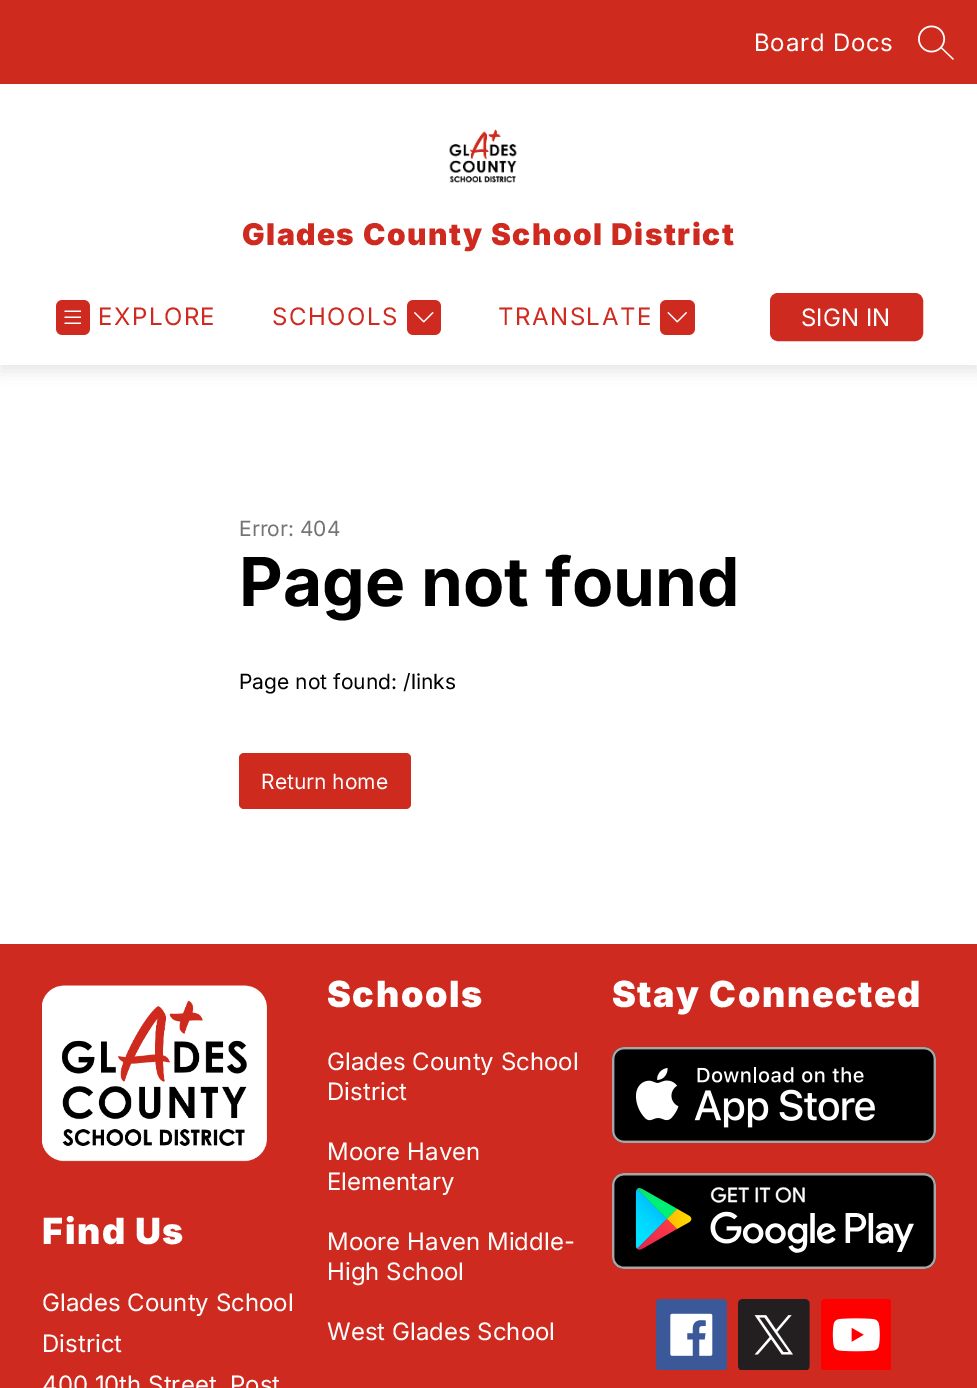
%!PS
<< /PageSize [977 1388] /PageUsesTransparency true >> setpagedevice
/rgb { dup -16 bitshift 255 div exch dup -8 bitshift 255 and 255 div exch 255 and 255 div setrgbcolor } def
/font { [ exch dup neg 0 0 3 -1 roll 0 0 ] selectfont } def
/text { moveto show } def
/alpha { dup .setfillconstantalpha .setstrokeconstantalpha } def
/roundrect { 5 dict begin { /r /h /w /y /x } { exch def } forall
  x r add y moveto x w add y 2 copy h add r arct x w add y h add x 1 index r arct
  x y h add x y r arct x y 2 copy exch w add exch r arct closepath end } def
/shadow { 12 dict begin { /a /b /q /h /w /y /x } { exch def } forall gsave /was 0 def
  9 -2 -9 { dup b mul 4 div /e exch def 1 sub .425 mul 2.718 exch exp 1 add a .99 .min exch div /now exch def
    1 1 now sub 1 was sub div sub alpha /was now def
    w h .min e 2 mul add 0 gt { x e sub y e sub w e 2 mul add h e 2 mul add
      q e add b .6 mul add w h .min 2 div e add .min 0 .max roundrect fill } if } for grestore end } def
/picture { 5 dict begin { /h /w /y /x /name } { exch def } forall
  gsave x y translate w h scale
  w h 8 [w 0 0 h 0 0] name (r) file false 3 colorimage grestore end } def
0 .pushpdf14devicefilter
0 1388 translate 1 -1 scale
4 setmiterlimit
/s1 { /Inter-Regular 24 font 16#FFFFFF rgb } def
/s2 { /Inter-Regular 21 font 16#747474 rgb } def
/s3 { /Inter-Bold 67.5 font 16#000000 rgb } def
/s4 { /Inter-Regular 21 font 16#000000 rgb } def
/s5 { /Inter-Regular 21 font 16#FFFFFF rgb } def
16#FFFFFF rgb
0 0 977 1388 rectfill
16#000000 rgb
0 6 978 365 0 7.5 0.1 shadow
16#FFFFFF rgb
0 84 977 281 rectfill
16#CE2A1D rgb
0 0 977 84 rectfill
/Inter-Regular 24 font
16#FFFFFF rgb
754 51 moveto 0.75 0 (Board Docs) ashow
(pic1.raw) 918 25 36 35 picture
(pic2.raw) 449 129 68 54 picture
/Inter-Black 30 font
16#CE2A1F rgb
242 245 moveto 1.5 0 (Glades County School District) ashow
(pic3.raw) 56 300 34 35 picture
/Inter-Regular 24 font
98 325 moveto 1.5 0 (EXPLORE) ashow
272 325 moveto 1.5 0 (SCHOOLS) ashow
(pic4.raw) 407 300 34 35 picture
498 325 moveto 1.5 0 (TRANSLATE) ashow
(pic5.raw) 660 300 35 35 picture
771 294 151 46 7 roundrect gsave fill grestore
2 setlinewidth
stroke
s1
(SIGN IN) 801 326 text
s2
(Error: 404) 239 536 text
s3
(Page not found) 239 606 text
s4
(Page not found: /links) 239 689 text
16#CE2A1D rgb
239 753 172 56 5 roundrect fill
s5
(Return home) 261 789 text
16#CE2A1F rgb
0 944 977 444 rectfill
/Inter-Black 36 font
16#FFFFFF rgb
327 1007 moveto 1.5 0 (Schools) ashow
s1
(Glades County School) 327 1070 text
(District) 327 1100 text
(Moore Haven) 327 1160 text
(Elementary) 327 1190 text
(Moore Haven Middle-) 327 1250 text
(High School) 327 1280 text
(West Glades School) 327 1340 text
/Inter-Black 36 font
612 1007 moveto 1.5 0 (Stay Connected) ashow
(pic6.raw) 612 1047 324 96 picture
(pic7.raw) 612 1173 324 96 picture
(pic8.raw) 656 1299 71 71 picture
(pic9.raw) 738 1299 72 71 picture
(pic10.raw) 821 1299 70 71 picture
(pic11.raw) 42 985 225 177 picture
42 1244 moveto 1.5 0 (Find Us) ashow
s1
(Glades County School) 42 1311 text
(District) 42 1352 text
(400 10th Street, Post) 42 1393 text
.poppdf14devicefilter showpage
